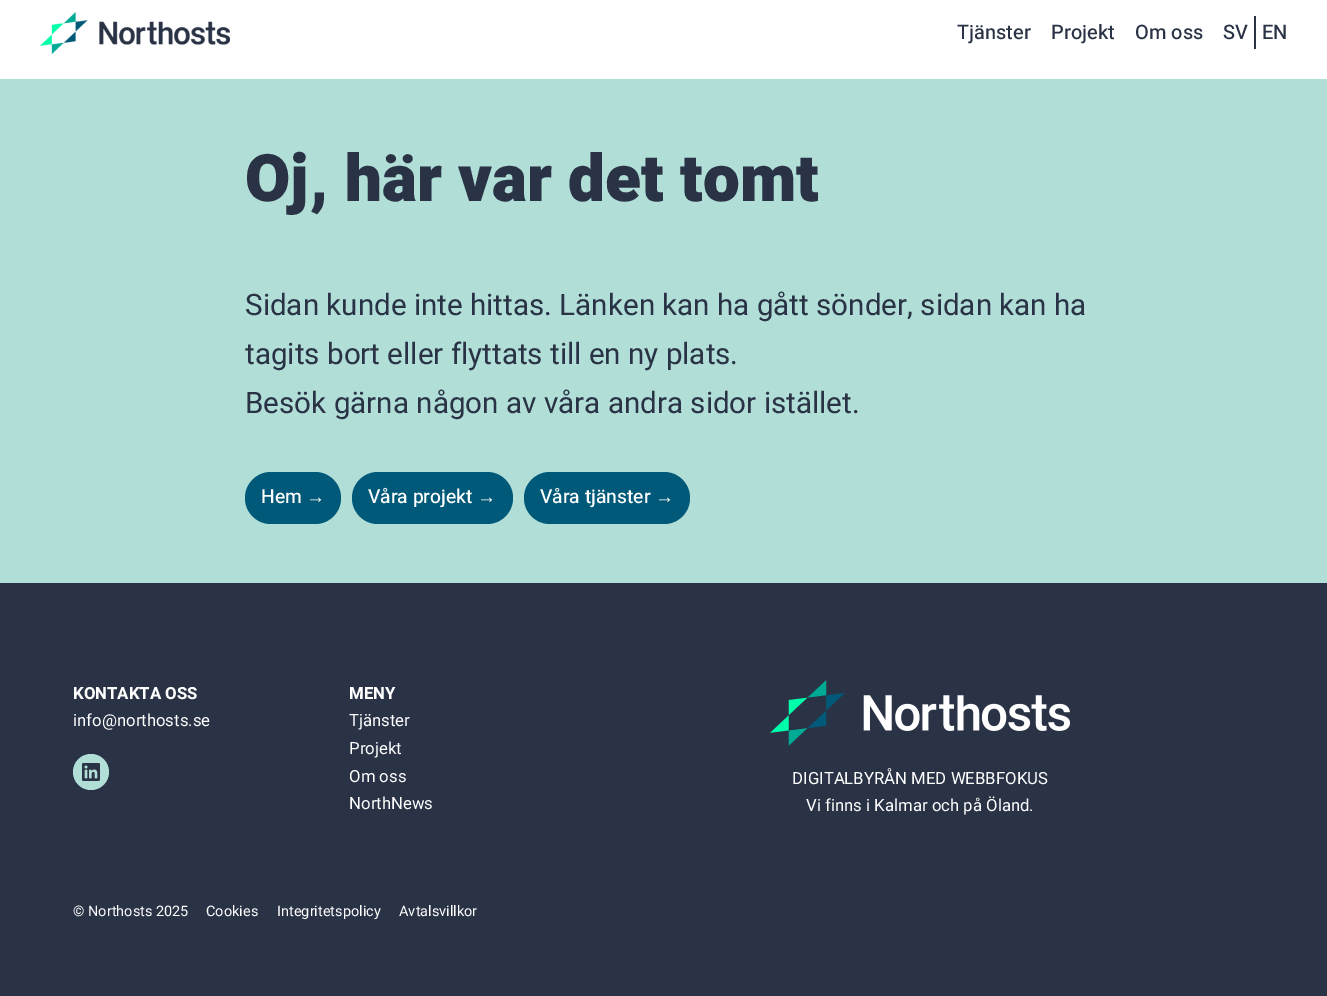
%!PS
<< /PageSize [1327 996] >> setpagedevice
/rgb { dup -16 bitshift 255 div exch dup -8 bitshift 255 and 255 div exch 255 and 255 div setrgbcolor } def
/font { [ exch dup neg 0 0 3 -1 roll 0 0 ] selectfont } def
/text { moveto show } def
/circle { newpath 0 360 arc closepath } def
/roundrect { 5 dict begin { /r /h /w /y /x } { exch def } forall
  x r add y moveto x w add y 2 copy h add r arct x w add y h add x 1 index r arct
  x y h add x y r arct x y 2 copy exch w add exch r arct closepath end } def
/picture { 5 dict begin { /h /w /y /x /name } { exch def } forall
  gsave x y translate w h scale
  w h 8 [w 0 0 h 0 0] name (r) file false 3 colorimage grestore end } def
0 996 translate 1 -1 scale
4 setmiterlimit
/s1 { /Heebo-Medium 20 font 16#293345 rgb } def
/s2 { /Heebo-Black 65.5 font 16#293345 rgb } def
/s3 { /Heebo-Regular 29.6 font 16#293345 rgb } def
/s4 { /Heebo-Medium 19.25 font 16#FFFFFF rgb } def
/s5 { /LiberationSans-Regular 19.25 font 16#FFFFFF rgb } def
/s6 { /Heebo-Bold 16.75 font 16#FFFFFF rgb } def
/s7 { /Heebo-Regular 16.75 font 16#FFFFFF rgb } def
/s8 { /Heebo-Regular 14.5 font 16#FFFFFF rgb } def
16#FFFFFF rgb
0 0 1327 996 rectfill
(pic1.raw) 40 12 190 42 picture
s1
(Tjänster) 957 39 text
(Projekt) 1051 39 text
(Om oss) 1135 39 text
1254 16 2 33 rectfill
(SV) 1223 39 text
(EN) 1262 39 text
16#B1DED7 rgb
0 79 1327 504 rectfill
s2
(Oj, här var det tomt) 245 201 text
s3
(Sidan kunde inte hittas. Länken kan ha gått sönder, sidan kan ha) 245 315 text
(tagits bort eller flyttats till en ny plats.) 245 364 text
(Besök gärna någon av våra andra sidor istället.) 245 413 text
16#005978 rgb
245 472 96 52 26 roundrect fill
s4
(Hem) 261 503 text
s5
(→) 306 503 text
16#005978 rgb
352 472 161 52 26 roundrect fill
s4
(Våra projekt) 368 503 text
s5
(→) 477 503 text
16#005978 rgb
524 472 166 52 26 roundrect fill
s4
(Våra tjänster) 540 503 text
s5
(→) 655 503 text
16#293345 rgb
0 583 1327 413 rectfill
s6
(KONTAKTA OSS) 73 699 text
s7
(info@northosts.se) 73 726 text
16#B1DED7 rgb
91 772 18 circle fill
(pic2.raw) 82 763 18 18 picture
s6
(MENY) 349 699 text
s7
(Tjänster) 349 726 text
(Projekt) 349 754 text
(Om oss) 349 782 text
(NorthNews) 349 809 text
(pic3.raw) 770 680 300 66 picture
(DIGITALBYRÅN MED WEBBFOKUS) 792 784 text
(Vi finns i Kalmar och på Öland.) 806 811 text
s8
(© Northosts 2025) 73 916 text
(Cookies) 206 916 text
(Integritetspolicy) 277 916 text
(Avtalsvillkor) 399 916 text
showpage
